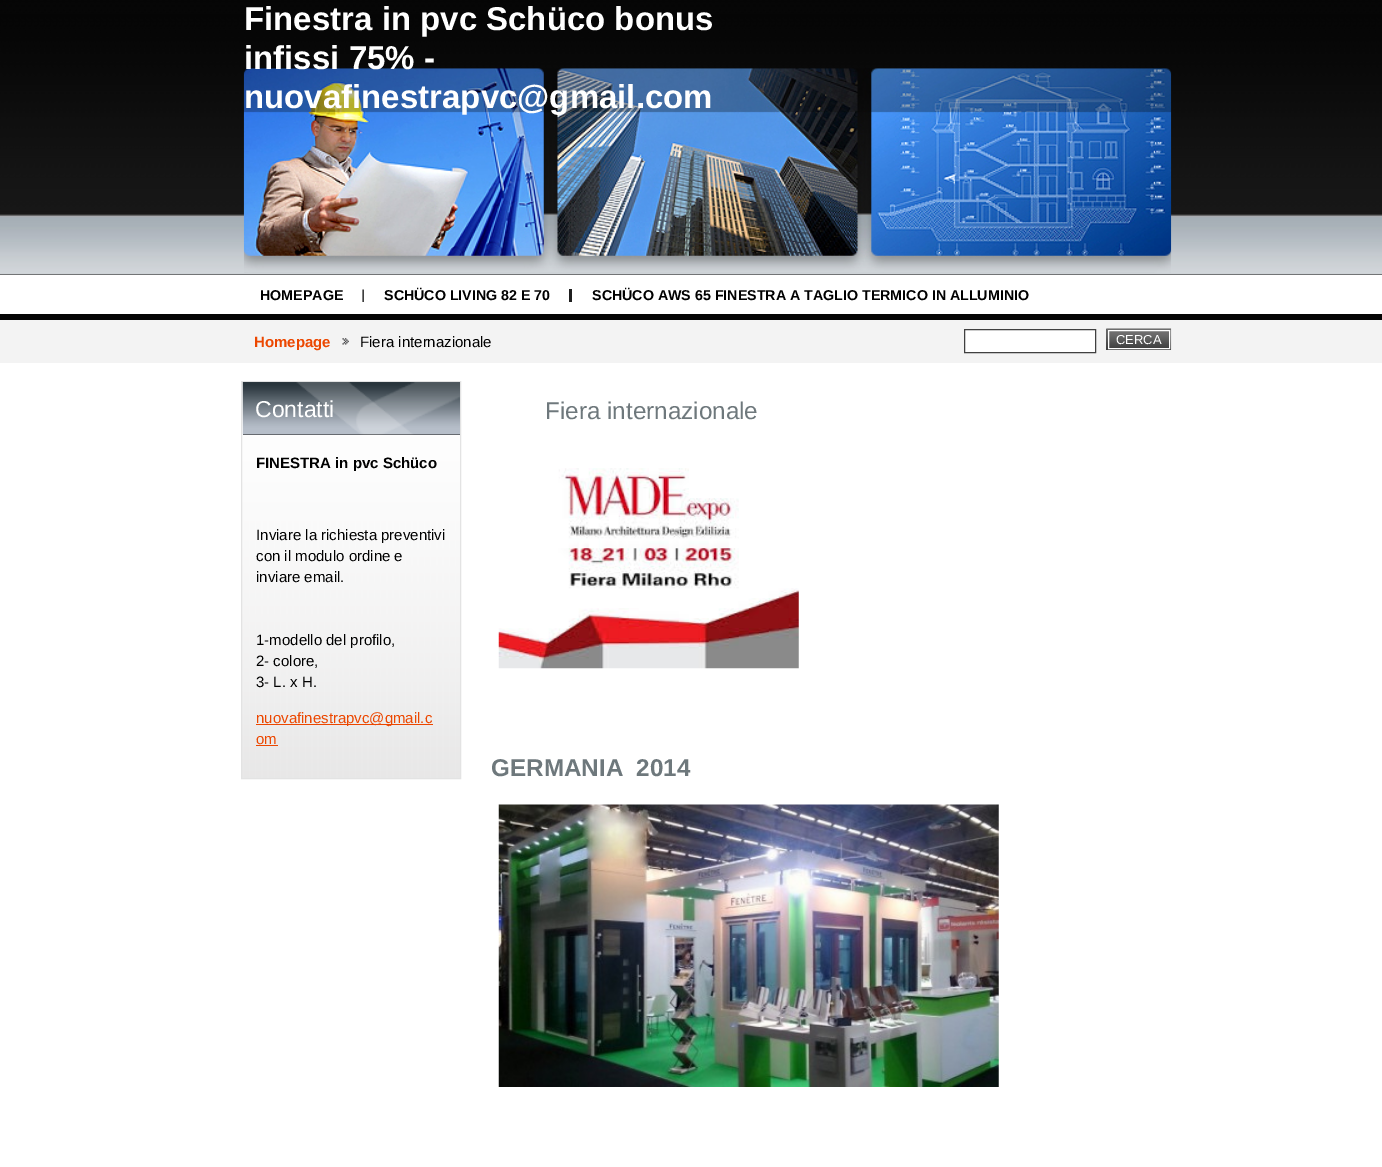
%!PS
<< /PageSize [1382 1167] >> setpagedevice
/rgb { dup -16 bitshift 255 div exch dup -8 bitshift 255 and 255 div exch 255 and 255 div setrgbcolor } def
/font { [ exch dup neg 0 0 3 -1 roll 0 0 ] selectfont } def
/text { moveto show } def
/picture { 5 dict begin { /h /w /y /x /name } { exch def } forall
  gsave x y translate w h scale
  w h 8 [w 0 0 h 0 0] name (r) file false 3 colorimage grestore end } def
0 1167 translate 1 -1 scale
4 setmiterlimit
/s1 { /LiberationSans-Bold 33 font 16#FFFFFF rgb } def
/s2 { /LiberationSans-Bold 14.25 font 16#000000 rgb } def
/s3 { /LiberationSans-Bold 15 font 16#EC4700 rgb } def
/s4 { /LiberationSans-Regular 15 font 16#000000 rgb } def
/s5 { /LiberationSans-Regular 13 font 16#FFFFFF rgb } def
/s6 { /LiberationSans-Regular 23 font 16#FFFFFF rgb } def
/s7 { /LiberationSans-Bold 15 font 16#000000 rgb } def
/s8 { /LiberationSans-Regular 15 font 16#EC4700 rgb } def
/s9 { /LiberationSans-Regular 24.25 font 16#6E787C rgb } def
/s10 { /LiberationSans-Bold 24.25 font 16#6E787C rgb } def
16#FFFFFF rgb
0 0 1382 1167 rectfill
16#161616 rgb
0 274 1382 1 rectfill
(pic1.raw) 0 0 1382 275 picture
s1
(Finestra in pvc Schüco bonus) 244 30 text
(pic2.raw) 243 68 929 205 picture
(infissi 75% -) 244 69 text
(nuovafinestrapvc@gmail.com) 244 108 text
s2
(HOMEPAGE) 260 300 text
(pic3.raw) 362 289 2 13 picture
(SCHÜCO LIVING 82 E 70) 384 300 text
16#1F1F1F rgb
569 289 3 13 rectfill
s2
(SCHÜCO AWS 65 FINESTRA A TAGLIO TERMICO IN ALLUMINIO) 592 300 text
16#F3F3F3 rgb
0 320 1382 43 rectfill
16#050505 rgb
0 314 1382 6 rectfill
s3
(Homepage) 254 347 text
(pic4.raw) 342 338 7 7 picture
s4
(Fiera internazionale) 360 347 text
16#FFFFFF rgb
964.5 329.5 moveto 1095.5 329.5 lineto 1095.5 352.5 lineto 964.5 352.5 lineto closepath gsave fill grestore
16#404040 rgb
stroke
1106 329 65 21 rectfill
(pic5.raw) 1106 328 66 22 picture
(pic6.raw) 1109 331 60 16 picture
16#FFFFFF rgb
1108.5 330.5 61 18 rectstroke
s5
(CERCA) 1116 344 text
(pic7.raw) 242 382 218 396 picture
16#E3E3E3 rgb
241.5 381.5 219 397 rectstroke
16#161616 rgb
243 434 217 1 rectfill
(pic8.raw) 242 382 218 53 picture
s6
(Contatti) 255 417 text
s7
(FINESTRA in pvc Schüco) 256 468 text
s4
(Inviare la richiesta preventivi) 256 540 text
(con il modulo ordine e) 256 561 text
(inviare email.) 256 582 text
(1-modello del profilo,) 256 645 text
(2- colore,) 256 666 text
(3- L. x H.) 256 687 text
16#EC4700 rgb
256 724 177 1 rectfill
(nuovafinestrapvc@gmail.c) 256 723 text
(om) 256 744 text
256 745 22 1 rectfill
s9
(Fiera internazionale) 545 419 text
(pic9.raw) 498 468 301 201 picture
s10
(GERMANIA  2014) 491 776 text
(pic10.raw) 498 804 501 283 picture
showpage
